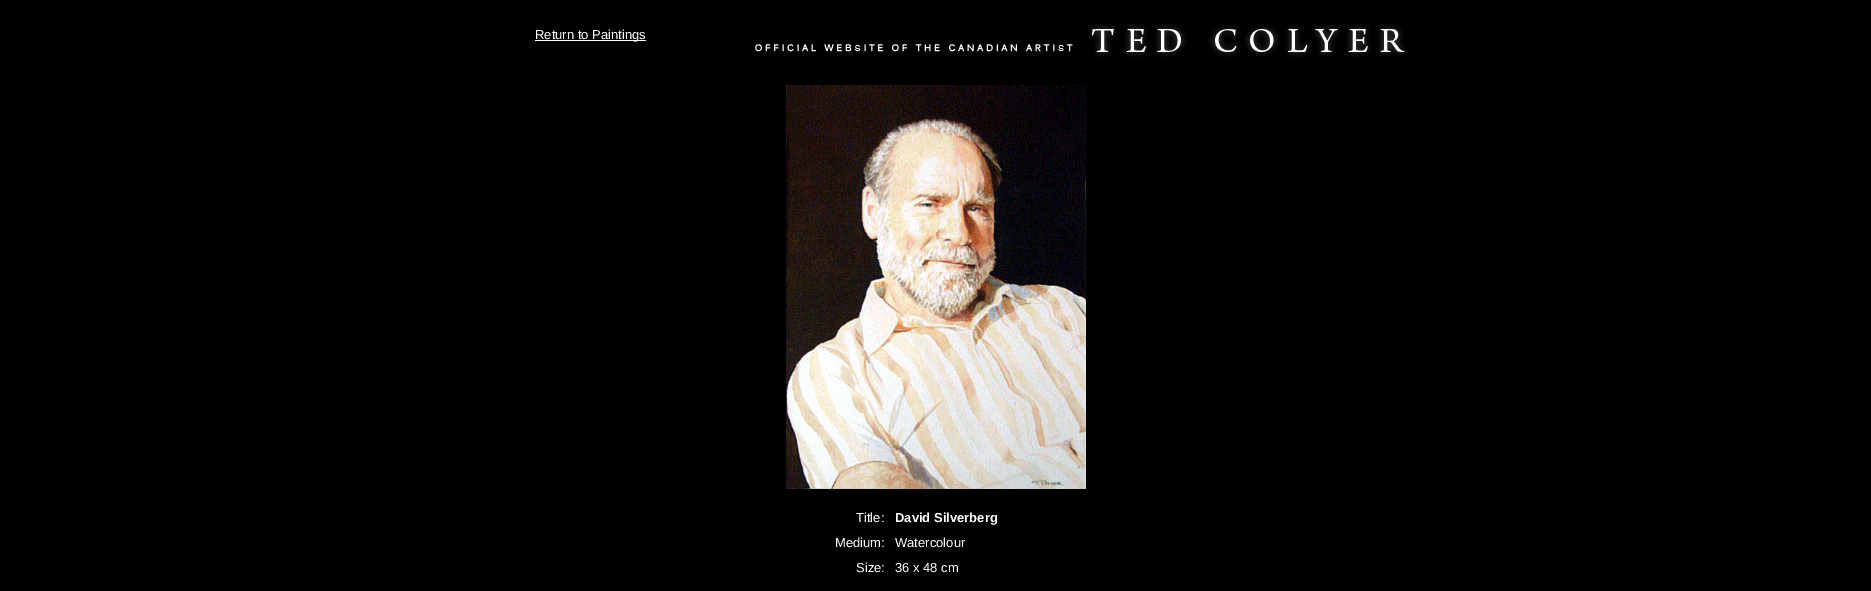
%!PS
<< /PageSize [1871 591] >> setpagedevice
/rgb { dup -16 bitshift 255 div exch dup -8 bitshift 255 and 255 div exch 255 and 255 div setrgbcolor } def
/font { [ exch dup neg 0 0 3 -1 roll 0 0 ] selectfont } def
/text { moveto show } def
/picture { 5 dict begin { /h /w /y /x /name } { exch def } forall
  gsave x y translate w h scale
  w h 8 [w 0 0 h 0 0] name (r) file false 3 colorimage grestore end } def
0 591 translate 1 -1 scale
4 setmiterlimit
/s1 { /LiberationSans-Regular 13 font 16#FFFFFF rgb } def
/s2 { /LiberationSans-Bold 13 font 16#FFFFFF rgb } def
16#000000 rgb
0 0 1871 591 rectfill
16#FFFFFF rgb
535 40 111 1 rectfill
s1
(Return to Paintings) 535 39 text
(pic1.raw) 755 24 650 33 picture
(pic2.raw) 786 85 300 404 picture
(Title:) 856 522 text
s2
(David Silverberg) 895 522 text
s1
(Medium:) 835 547 text
(Watercolour) 895 547 text
(Size:) 856 572 text
(36 x 48 cm) 895 572 text
showpage
